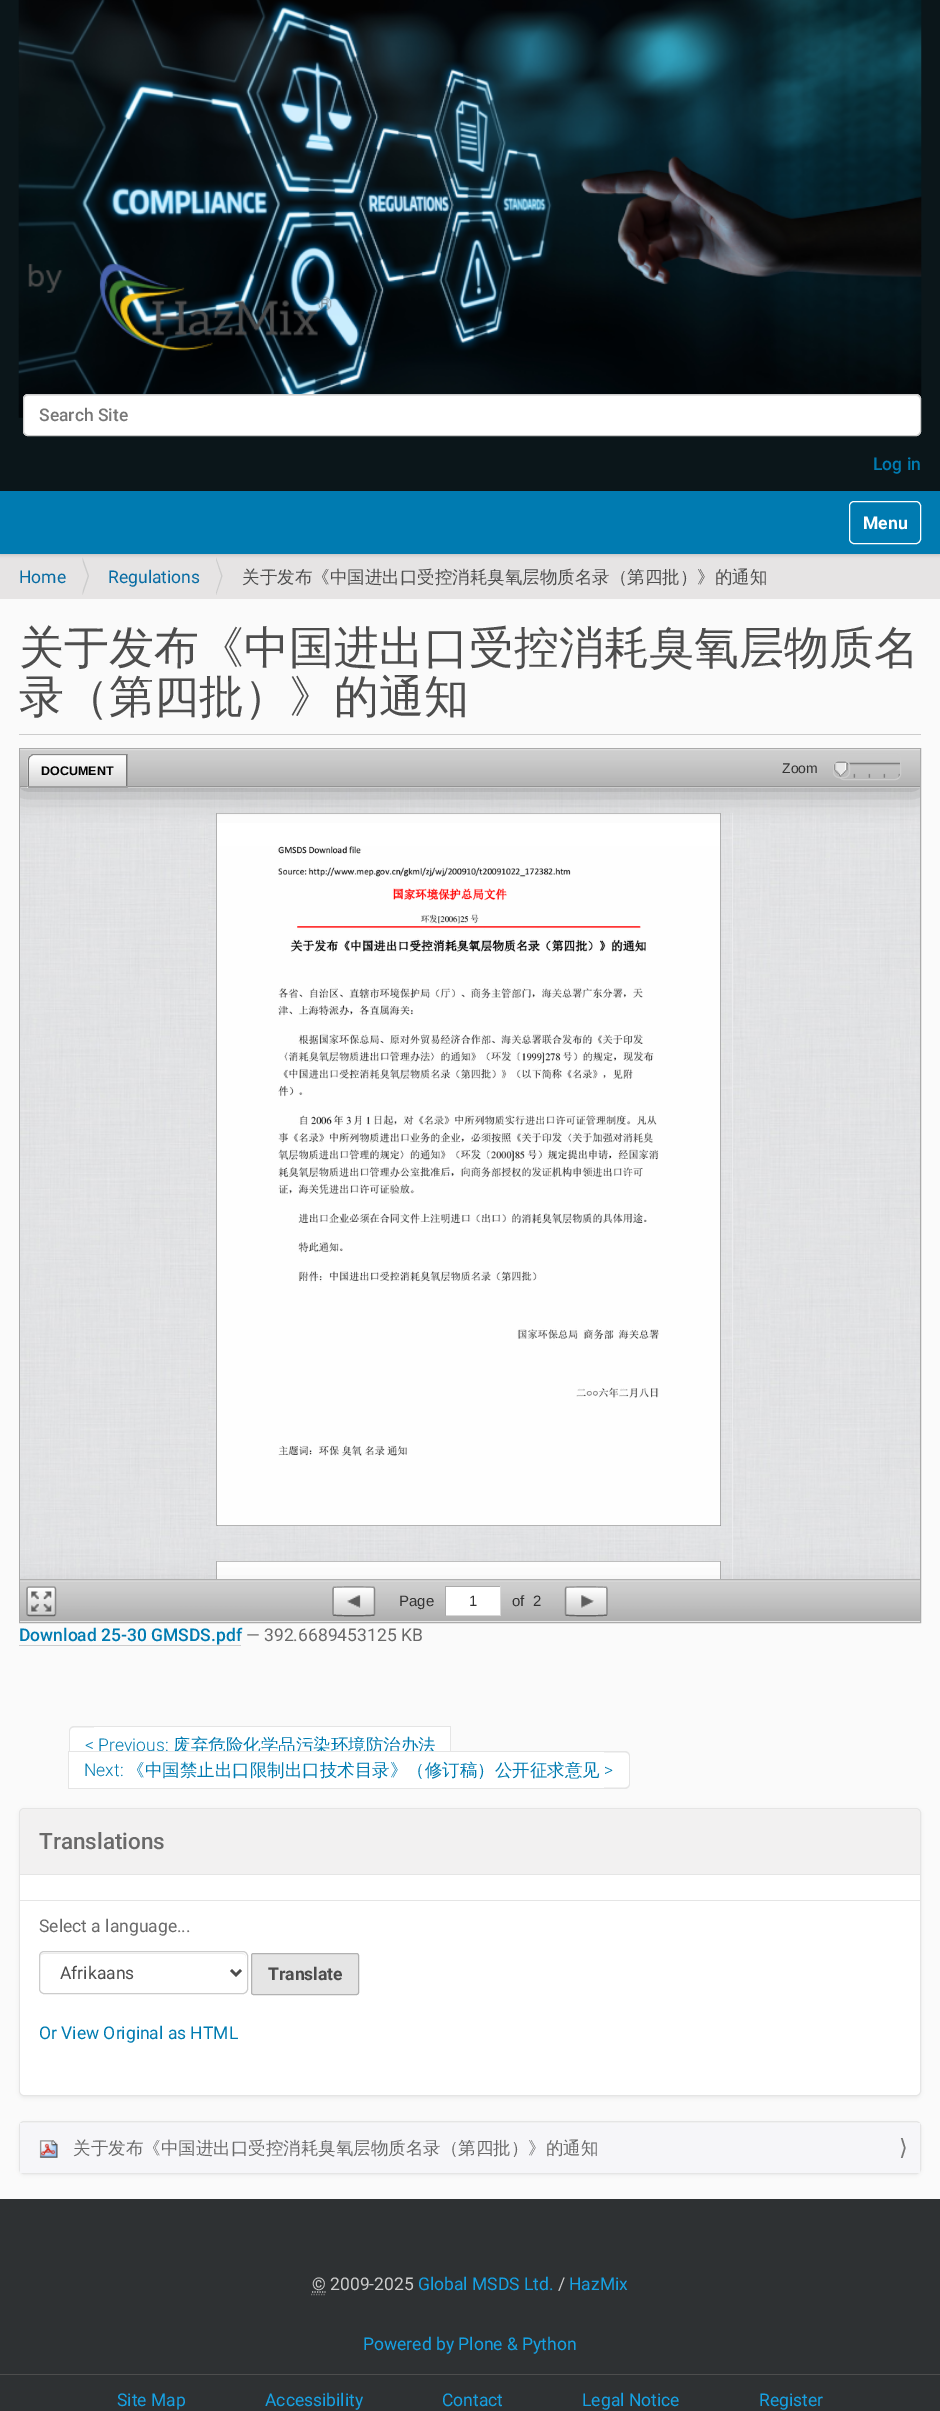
%!PS
<< /PageSize [940 2411] /PageUsesTransparency true >> setpagedevice
/rgb { dup -16 bitshift 255 div exch dup -8 bitshift 255 and 255 div exch 255 and 255 div setrgbcolor } def
/font { [ exch dup neg 0 0 3 -1 roll 0 0 ] selectfont } def
/text { moveto show } def
/alpha { dup .setfillconstantalpha .setstrokeconstantalpha } def
/roundrect { 5 dict begin { /r /h /w /y /x } { exch def } forall
  x r add y moveto x w add y 2 copy h add r arct x w add y h add x 1 index r arct
  x y h add x y r arct x y 2 copy exch w add exch r arct closepath end } def
/shadow { 12 dict begin { /a /b /q /h /w /y /x } { exch def } forall gsave /was 0 def
  9 -2 -9 { dup b mul 4 div /e exch def 1 sub .425 mul 2.718 exch exp 1 add a .99 .min exch div /now exch def
    1 1 now sub 1 was sub div sub alpha /was now def
    w h .min e 2 mul add 0 gt { x e sub y e sub w e 2 mul add h e 2 mul add
      q e add b .6 mul add w h .min 2 div e add .min 0 .max roundrect fill } if } for grestore end } def
/picture { 5 dict begin { /h /w /y /x /name } { exch def } forall
  gsave x y translate w h scale
  w h 8 [w 0 0 h 0 0] name (r) file false 3 colorimage grestore end } def
0 .pushpdf14devicefilter
0 2411 translate 1 -1 scale
4 setmiterlimit
/s1 { /Roboto-Medium 17.5 font 16#777777 rgb } def
/s2 { /Roboto-Medium 17.5 font 16#007BB1 rgb } def
/s3 { /Roboto-Bold 17.5 font 16#FFFFFF rgb } def
/s4 { /Roboto-Regular 17.5 font 16#086CA3 rgb } def
/s5 { /WenQuanYiZenHei-Medium 17.5 font 16#4D4D4D rgb } def
/s6 { /WenQuanYiZenHei-Medium 45 font 16#4D4D4D rgb } def
/s7 { /LiberationSans-Bold 12.5 font 16#000000 rgb } def
/s8 { /LiberationSans-Regular 14 font 16#333333 rgb } def
/s9 { /LiberationSans-Regular 15 font 16#333333 rgb } def
/s10 { /Roboto-Regular 17.5 font 16#696969 rgb } def
/s11 { /Roboto-Light 17.5 font 16#007BB1 rgb } def
/s12 { /WenQuanYiZenHei-Medium 17.5 font 16#007BB1 rgb } def
/s13 { /Roboto-Medium 22.5 font 16#696969 rgb } def
/s14 { /Roboto-Regular 17.5 font 16#4D4D4D rgb } def
/s15 { /Roboto-Bold 17.5 font 16#4D4D4D rgb } def
/s16 { /Roboto-Regular 17.5 font 16#007BB1 rgb } def
/s17 { /WenQuanYiZenHei-Medium 17.5 font 16#696969 rgb } def
/s18 { /DejaVuSans-Regular 22.5 font 16#777777 rgb } def
/s19 { /Roboto-Regular 17.5 font 16#CCCCCC rgb } def
/s20 { /Roboto-Regular 17.5 font 16#16A1E3 rgb } def
16#FAFAFA rgb
0 0 940 2411 rectfill
16#0B161A rgb
0 0 940 491 rectfill
(pic1.raw) 18 0 904 418 picture
(pic2.raw) 28 263 304 88 picture
16#FFFFFF rgb
23 394 898 42 5 roundrect fill
16#ECECEC rgb
28 396 moveto 916 396 lineto 918 396 920 398 920 400 curveto 920 397 919 395 916 395 curveto 28 395 lineto 25 395 24 397 24 400 curveto 24 398 25 396 28 396 curveto closepath fill
16#CCCCCC rgb
23.5 394.5 897 41 4.5 roundrect stroke
s1
(Search Site) 39 421 text
s2
(Log in) 873 470 text
16#E6E4E4 rgb
0 554 940 45 rectfill
16#000000 rgb
0 493 940 62 0 2 0.17 shadow
16#007BB1 rgb
0 491 940 63 rectfill
16#FFFFFF rgb
849.5 501.5 71 42 4.5 roundrect stroke
s3
(Menu) 863 529 text
s4
(Home) 19 583 text
16#CCCCCC rgb
82.5 595 moveto 82.5 557.5 lineto 89 576 lineto closepath fill
16#E6E4E4 rgb
81 595 moveto 81 557.5 lineto 87.5 576 lineto closepath fill
s4
(Regulations) 108 583 text
16#CCCCCC rgb
216 595 moveto 216 557.5 lineto 222.5 576 lineto closepath fill
16#E6E4E4 rgb
215 595 moveto 215 557.5 lineto 221 576 lineto closepath fill
s5
(关于发布《中国进出口受控消耗臭氧层物质名录（第四批）》的通知) 242 583 text
16#CCCCCC rgb
19 734 902 1 rectfill
s6
(关于发布《中国进出口受控消耗臭氧层物质名) 19 663 text
(录（第四批）》的通知) 19 712 text
16#AAAAAA rgb
19.5 748.5 901 874 rectstroke
(pic7.raw) 20 788 900 793 picture
16#F5F6F7 rgb
732 813 1 766 rectfill
(pic8.raw) 208 813 525 768 picture
16#FFFFFF rgb
217 814 503 711 rectfill
16#C0C0C0 rgb
216 813 505 1 rectfill
16#B0B0B0 rgb
720 813 1 713 rectfill
16#999999 rgb
216 1525 505 1 rectfill
16#B0B0B0 rgb
216 813 1 713 rectfill
gsave
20 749 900 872 rectclip
16#000000 rgb
20 749 900 39 0 15.5 0.35 shadow
grestore
16#777777 rgb
20 786 900 1 rectfill
(pic3.raw) 20 749 900 38 picture
16#BFBFBF rgb
34 754 moveto 128 754 lineto 128 788 lineto 28 788 lineto 28 760 lineto 28 756.5 30.5 754 34 754 curveto closepath fill
(pic4.raw) 27 755 101 33 picture
16#888888 rgb
34 754 moveto 32 754 31 755 30 756 curveto 30 757 lineto 33 755 lineto 126 755 lineto 127 754 lineto closepath fill
16#777777 rgb
127.5 754 moveto 126 755 lineto 126 786 lineto 127.5 787.5 lineto closepath fill
16#A0A0A0 rgb
128 788 moveto 28 788 lineto 29 786 lineto 126 786 lineto closepath fill
16#777777 rgb
29.5 756 moveto 28.5 757 28 758.5 28 760 curveto 28 787 lineto 29 786 lineto 29 760 lineto 29 758.5 29.5 757.5 30.5 756.5 curveto closepath fill
s7
(DOCUMENT) 41 775 text
s8
(Zoom) 782 773 text
(pic5.raw) 838 762 64 16 picture
16#CCCCCC rgb
838.5 753.5 62 26 5.5 roundrect stroke
(pic6.raw) 833 761 15 16 picture
833.5 760.5 16 17 5.5 roundrect stroke
(pic9.raw) 217 846 503 680 picture
16#FFFFFF rgb
217 1562 503 17 rectfill
16#C0C0C0 rgb
216 1561 505 1 rectfill
16#B0B0B0 rgb
720 1561 1 19 rectfill
216 1561 1 19 rectfill
16#CCCCCC rgb
19 1645 222 1 rectfill
gsave
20 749 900 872 rectclip
16#000000 rgb
20 1579 900 42 0 15.5 0.05 shadow
grestore
(pic10.raw) 20 1580 900 42 picture
16#B0B0B0 rgb
20 1579 900 1 rectfill
(pic11.raw) 27 1587 29 29 picture
16#999999 rgb
1.2 setlinewidth
27.5 1587.5 moveto 29 1587 lineto 54 1587 lineto 55 1587.5 lineto stroke
16#888888 rgb
55 1587.5 moveto 55.5 1589 lineto 55.5 1614 lineto 55 1615 lineto stroke
16#666666 rgb
55 1615 moveto 54 1615.5 lineto 29 1615.5 lineto 27.5 1615 lineto stroke
16#888888 rgb
27.5 1615 moveto 27 1614 lineto 27 1589 lineto 27.5 1587.5 lineto stroke
(pic12.raw) 333 1587 42 29 picture
16#999999 rgb
333.5 1587.5 moveto 334.5 1586.5 373 1586.5 374 1587.5 curveto stroke
16#888888 rgb
374 1587.5 moveto 374.5 1589 lineto 374.5 1614 lineto 374 1615 lineto stroke
16#666666 rgb
374 1615 moveto 373 1616 334.5 1616 333.5 1615 curveto stroke
16#888888 rgb
333.5 1615 moveto 333 1614 lineto 333 1589 lineto 333.5 1587.5 lineto stroke
s9
(Page) 399 1606 text
16#FFFFFF rgb
446 1587 54 28 rectfill
16#AAAAAA rgb
445 1586 56 1 rectfill
16#D7D7D7 rgb
500 1586 1 30 rectfill
445 1615 56 1 rectfill
16#AAAAAA rgb
445 1586 1 30 rectfill
s9
(1) 469 1606 text
(of) 512 1606 text
(2) 533 1606 text
(pic13.raw) 565 1587 43 29 picture
16#999999 rgb
566 1587.5 moveto 567 1586.5 605.5 1586.5 606.5 1587.5 curveto stroke
16#888888 rgb
606.5 1587.5 moveto 607 1589 lineto 607 1614 lineto 606.5 1615 lineto stroke
16#666666 rgb
606.5 1615 moveto 605.5 1616 567 1616 566 1615 curveto stroke
16#888888 rgb
566 1615 moveto 565.5 1614 lineto 565.5 1589 lineto 566 1587.5 lineto stroke
s2
(Download 25-30 GMSDS.pdf) 19 1641 text
s10
(— 392.6689453125 KB) 246 1641 text
16#FFFFFF rgb
74 1726 moveto 94 1726 lineto 94 1764 lineto 74 1764 lineto 71 1764 69 1762 69 1759 curveto 69 1731 lineto 69 1728 71 1726 74 1726 curveto closepath fill
16#E5E5E5 rgb
74 1726 moveto 94 1726 lineto 94 1764 lineto 74 1764 lineto 71 1764 69 1761.5 69 1759 curveto 69 1731 lineto 69 1728.5 71 1726 74 1726 curveto closepath 74 1727.5 moveto 94 1727.5 lineto 94 1762.5 lineto 74 1762.5 lineto 71.5 1762.5 70 1761 70 1759 curveto 70 1731 lineto 70 1729 71.5 1727.5 74 1727.5 curveto closepath eofill
16#FFFFFF rgb
94 1726 5 25 rectfill
99 1727 351 24 rectfill
s11
(< Previous:) 85 1751 text
16#E5E5E5 rgb
94 1726 357 1 rectfill
s12
(废弃危险化学品污染环境防治办法) 173 1751 text
16#E5E5E5 rgb
450 1726 1 25 rectfill
16#FFFFFF rgb
69 1752 531 36 rectfill
s11
(Next:) 84 1776 text
16#E5E5E5 rgb
68 1751 532 1 rectfill
68 1788 532 1 rectfill
68 1751 1 38 rectfill
s12
(《中国禁止出口限制出口技术目录》（修订稿）公开征求意见) 127 1776 text
16#FFFFFF rgb
600 1751 4 38 rectfill
16#E5E5E5 rgb
600 1751 4 1 rectfill
600 1788 4 1 rectfill
16#FFFFFF rgb
604 1751 moveto 625 1751 lineto 628 1751 630 1753 630 1756 curveto 630 1784 lineto 630 1787 628 1789 625 1789 curveto 604 1789 lineto closepath fill
16#E5E5E5 rgb
604 1751 moveto 625 1751 lineto 628 1751 630 1753.5 630 1756 curveto 630 1784 lineto 630 1786.5 628 1789 625 1789 curveto 604 1789 lineto closepath 604 1752.5 moveto 625 1752.5 lineto 627 1752.5 629 1754 629 1756 curveto 629 1784 lineto 629 1786 627 1787.5 625 1787.5 curveto 604 1787.5 lineto closepath eofill
s11
(>) 604 1776 text
16#000000 rgb
19 1809 902 289 5 2 0.05 shadow
16#E5E5E5 rgb
1 setlinewidth
19.5 1808.5 901 287 4.5 roundrect stroke
16#F2F1F1 rgb
25 1809 moveto 915 1809 lineto 918 1809 920 1811 920 1814 curveto 920 1874 lineto 20 1874 lineto 20 1814 lineto 20 1811 22 1809 25 1809 curveto closepath fill
s13
(Translations) 39 1849 text
16#FFFFFF rgb
20 1874 moveto 920 1874 lineto 920 2090 lineto 920 2093 918 2095 915 2095 curveto 25 2095 lineto 22 2095 20 2093 20 2090 curveto closepath fill
16#E5E5E5 rgb
20 1874 900 1 rectfill
20 1900 900 1 rectfill
s10
(Select a language...) 39 1932 text
16#ECECEC rgb
44 1954 moveto 242 1954 lineto 245 1954 246 1955 246 1958 curveto 246 1957 lineto 246 1955 244 1953 242 1953 curveto 44 1953 lineto 42 1953 40 1955 40 1957 curveto 40 1958 lineto 40 1955 42 1954 44 1954 curveto closepath fill
16#CCCCCC rgb
39.5 1951.5 208 42 4.5 roundrect stroke
16#4D4D4D rgb
2.5 setlinewidth
231 1970 moveto 236 1975 lineto 241 1970 lineto stroke
(Afrikaans) 60 1979 text
16#E5E5E5 rgb
251.5 1953.5 107 41 2 roundrect gsave fill grestore
16#B2B2B2 rgb
1 setlinewidth
stroke
s15
(Translate) 268 1980 text
s16
(Or View Original as HTML) 39 2039 text
16#000000 rgb
19 2123 902 52 5 2 0.05 shadow
16#E5E5E5 rgb
19.5 2121.5 901 52 4.5 roundrect stroke
16#F6F6F9 rgb
20 2123 900 50 rectfill
(pic14.raw) 39 2140 19 18 picture
s17
(关于发布《中国进出口受控消耗臭氧层物质名录（第四批）》的通知) 73 2154 text
s18
(⟩) 899 2155 text
16#2E3133 rgb
0 2199 940 212 rectfill
s19
(© 2009-2025) 312 2290 text
16#777777 rgb
1.2 setlinewidth
[1.25 1.25] 0 setdash
311 2294.5 moveto 325 2294.5 lineto stroke
16#CCCCCC rgb
312 2292 moveto 325.5 2292 lineto stroke
s20
(Global MSDS Ltd.) 418 2290 text
s19
(/) 558 2290 text
s20
(HazMix) 569 2290 text
(Powered by Plone & Python) 363 2350 text
16#4D4D4D rgb
0 2374 940 1 rectfill
s20
(Site Map) 117 2406 text
(Accessibility) 265 2406 text
(Contact) 442 2406 text
(Legal Notice) 582 2406 text
(Register) 759 2406 text
.poppdf14devicefilter showpage
